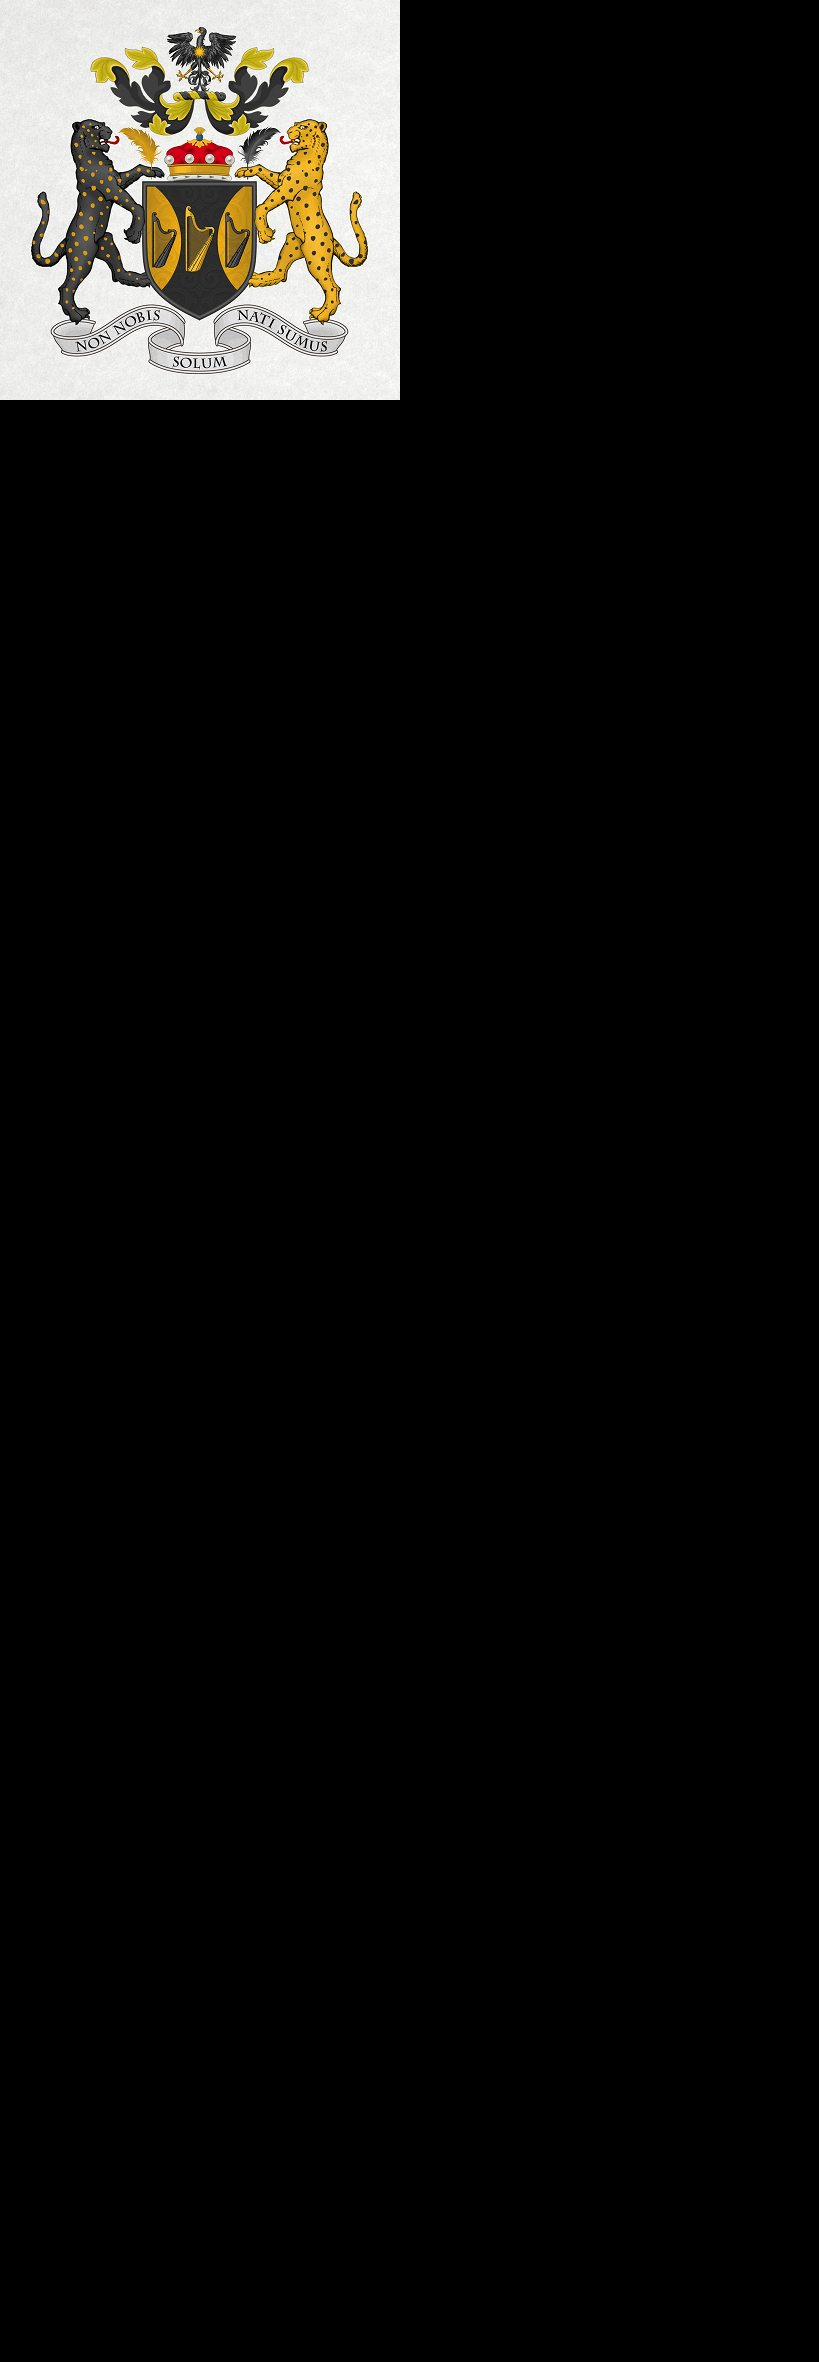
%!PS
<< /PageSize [819 2362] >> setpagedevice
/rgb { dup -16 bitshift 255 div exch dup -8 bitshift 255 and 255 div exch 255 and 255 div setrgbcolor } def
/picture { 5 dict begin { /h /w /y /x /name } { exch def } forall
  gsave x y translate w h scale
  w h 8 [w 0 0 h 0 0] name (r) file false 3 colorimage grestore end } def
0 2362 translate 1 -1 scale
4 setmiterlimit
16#000000 rgb
0 0 819 2362 rectfill
(pic1.raw) 0 0 400 400 picture
showpage
